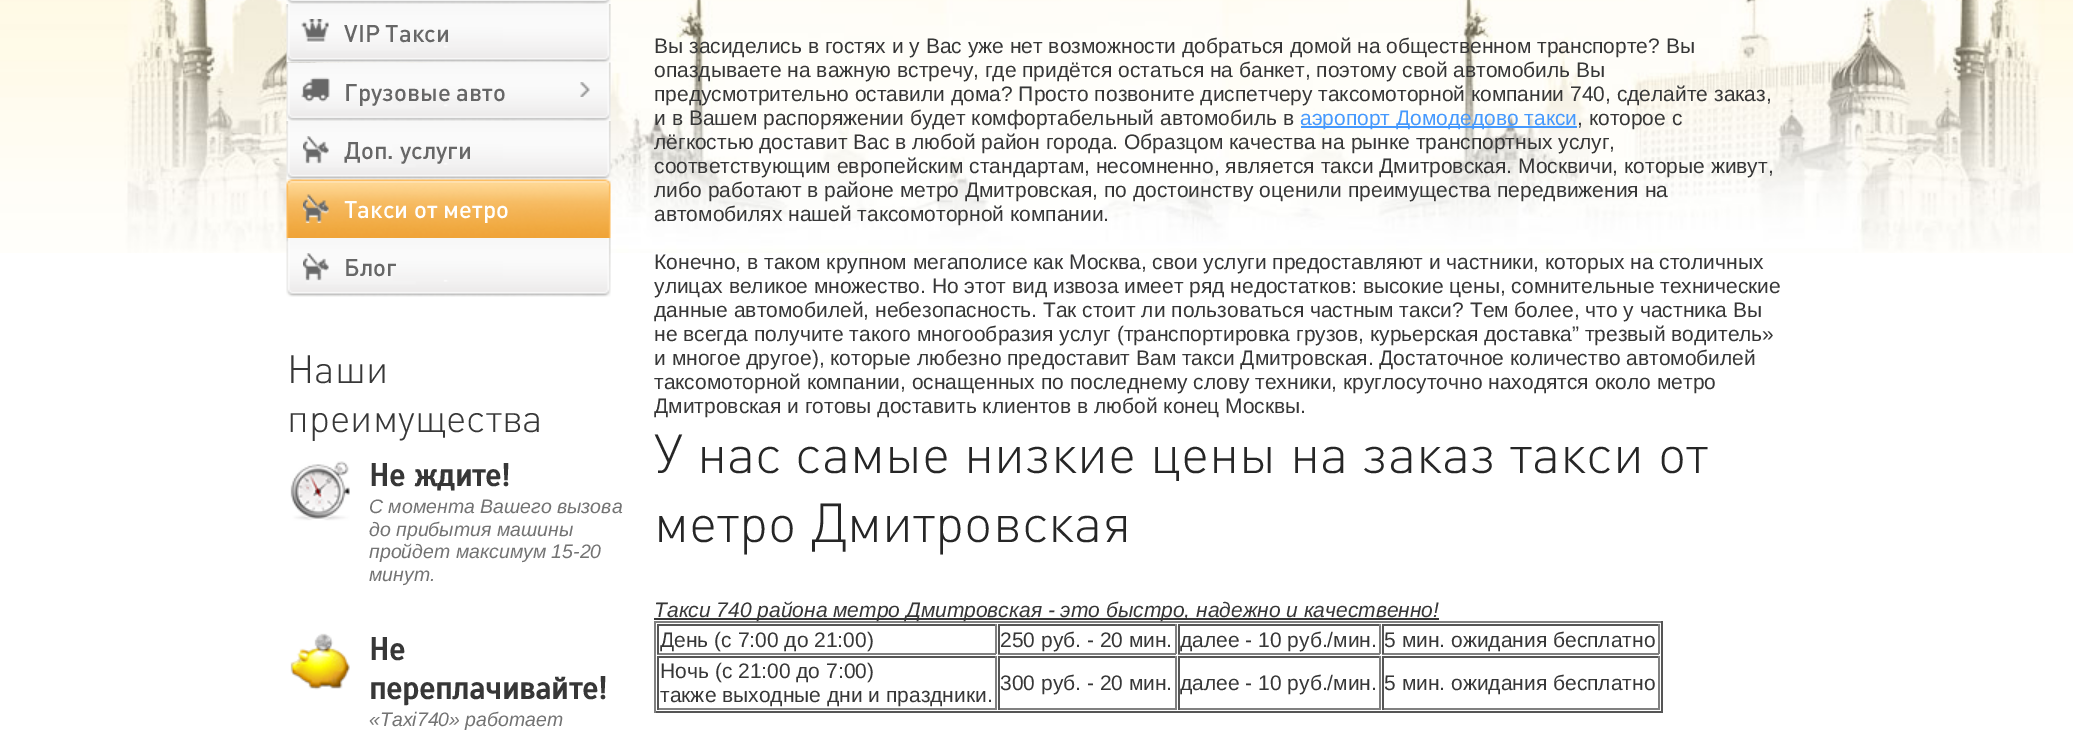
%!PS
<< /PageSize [2073 744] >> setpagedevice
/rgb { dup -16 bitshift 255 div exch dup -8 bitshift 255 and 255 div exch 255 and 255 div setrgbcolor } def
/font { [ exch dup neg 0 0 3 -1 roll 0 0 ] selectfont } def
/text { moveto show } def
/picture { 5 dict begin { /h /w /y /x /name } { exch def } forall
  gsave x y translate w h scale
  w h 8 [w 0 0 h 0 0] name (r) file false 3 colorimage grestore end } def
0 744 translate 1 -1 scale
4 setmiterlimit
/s1 { /DIN-Medium 24 font 16#676767 rgb } def
/s2 { /DIN-Medium 24 font 16#FFFFFF rgb } def
/s3 { /DIN-Light 39 font 16#373737 rgb } def
/s4 { /Scada-Bold 31.5 font 16#373737 rgb } def
/s5 { /LiberationSans-Italic 19.5 font 16#737373 rgb } def
/s6 { /LiberationSans-Regular 21 font 16#373737 rgb } def
/s7 { /LiberationSans-Regular 21 font 16#4599FE rgb } def
/s8 { /DIN-Light 54 font 16#262626 rgb } def
/s9 { /LiberationSans-Italic 21 font 16#373737 rgb } def
16#FFFFFF rgb
0 0 2073 744 rectfill
(pic1.raw) 0 0 2073 253 picture
(pic2.raw) 286 0 325 4 picture
(pic3.raw) 286 4 325 59 picture
(pic4.raw) 301 19 28 24 picture
s1
(VIP Такси) 344 42 text
(pic5.raw) 286 62 325 59 picture
(pic6.raw) 301 77 29 26 picture
(Грузовые авто) 344 101 text
(pic7.raw) 580 82 10 15 picture
(pic8.raw) 286 121 325 59 picture
(pic9.raw) 303 136 26 29 picture
(Доп. услуги) 344 159 text
(pic10.raw) 286 179 325 59 picture
(pic11.raw) 303 194 26 29 picture
s2
(Такси от метро) 344 218 text
(pic12.raw) 286 238 325 59 picture
(pic9.raw) 303 253 26 29 picture
s1
(Блог) 344 276 text
s3
(Наши) 287 383 text
(преимущества) 287 432 text
(pic13.raw) 290 461 60 60 picture
s4
(Не ждите!) 369 486 text
s5
(С момента Вашего вызова) 369 513 text
(до прибытия машины) 369 536 text
(пройдет максимум 15-20) 369 558 text
(минут.) 369 581 text
(pic14.raw) 290 633 60 57 picture
s4
(Не) 369 660 text
(переплачивайте!) 369 699 text
s5
(«Taxi740» работает) 369 726 text
s6
(Вы засиделись в гостях и у Вас уже нет возможности добраться домой на общественном транспорте? Вы) 654 53 text
(опаздываете на важную встречу, где придётся остаться на банкет, поэтому свой автомобиль Вы) 654 77 text
(предусмотрительно оставили дома? Просто позвоните диспетчеру таксомоторной компании 740, сделайте заказ,) 654 101 text
(и в Вашем распоряжении будет комфортабельный автомобиль в) 654 125 text
16#4599FE rgb
1301 126 276 2 rectfill
(аэропорт Домодедово такси) 1300 125 text
s6
(, которое с) 1577 125 text
(лёгкостью доставит Вас в любой район города. Образцом качества на рынке транспортных услуг,) 654 149 text
(соответствующим европейским стандартам, несомненно, является такси Дмитровская. Москвичи, которые живут,) 654 173 text
(либо работают в районе метро Дмитровская, по достоинству оценили преимущества передвижения на) 654 197 text
(автомобилях нашей таксомоторной компании.) 654 221 text
(Конечно, в таком крупном мегаполисе как Москва, свои услуги предоставляют и частники, которых на столичных) 654 269 text
(улицах великое множество. Но этот вид извоза имеет ряд недостатков: высокие цены, сомнительные технические) 654 293 text
(данные автомобилей, небезопасность. Так стоит ли пользоваться частным такси? Тем более, что у частника Вы) 654 317 text
(не всегда получите такого многообразия услуг \(транспортировка грузов, курьерская доставка” трезвый водитель») 654 341 text
(и многое другое\), которые любезно предоставит Вам такси Дмитровская. Достаточное количество автомобилей) 654 365 text
(таксомоторной компании, оснащенных по последнему слову техники, круглосуточно находятся около метро) 654 389 text
(Дмитровская и готовы доставить клиентов в любой конец Москвы.) 654 413 text
s8
(У нас самые низкие цены на заказ такси от) 654 473 text
(метро Дмитровская) 654 542 text
16#373737 rgb
654 618 785 2 rectfill
16#808080 rgb
654 621 1008 2 rectfill
16#555555 rgb
1661 621 2 92 rectfill
654 711 1008 2 rectfill
16#808080 rgb
654 621 2 92 rectfill
s9
(Такси 740 района метро Дмитровская - это быстро, надежно и качественно!) 654 617 text
16#555555 rgb
657 624 339 2 rectfill
16#808080 rgb
995 624 2 30 rectfill
657 653 339 2 rectfill
16#555555 rgb
657 624 2 30 rectfill
s6
(День \(с 7:00 до 21:00\)) 660 647 text
16#555555 rgb
998 624 178 2 rectfill
16#808080 rgb
1175 624 2 30 rectfill
998 653 178 2 rectfill
16#555555 rgb
998 624 2 30 rectfill
s6
(250 руб. - 20 мин.) 1000 647 text
16#555555 rgb
1178 624 202 2 rectfill
16#808080 rgb
1379 624 2 30 rectfill
1178 653 202 2 rectfill
16#555555 rgb
1178 624 2 30 rectfill
s6
(далее - 10 руб./мин.) 1180 647 text
16#555555 rgb
1382 624 277 2 rectfill
16#808080 rgb
1658 624 2 30 rectfill
1382 653 277 2 rectfill
16#555555 rgb
1382 624 2 30 rectfill
s6
(5 мин. ожидания бесплатно) 1384 647 text
16#555555 rgb
657 656 339 2 rectfill
16#808080 rgb
995 656 2 54 rectfill
657 708 339 2 rectfill
16#555555 rgb
657 656 2 54 rectfill
s6
(Ночь \(с 21:00 до 7:00\)) 660 678 text
(также выходные дни и праздники.) 660 702 text
16#555555 rgb
998 656 178 2 rectfill
16#808080 rgb
1175 656 2 54 rectfill
998 708 178 2 rectfill
16#555555 rgb
998 656 2 54 rectfill
s6
(300 руб. - 20 мин.) 1000 690 text
16#555555 rgb
1178 656 202 2 rectfill
16#808080 rgb
1379 656 2 54 rectfill
1178 708 202 2 rectfill
16#555555 rgb
1178 656 2 54 rectfill
s6
(далее - 10 руб./мин.) 1180 690 text
16#555555 rgb
1382 656 277 2 rectfill
16#808080 rgb
1658 656 2 54 rectfill
1382 708 277 2 rectfill
16#555555 rgb
1382 656 2 54 rectfill
s6
(5 мин. ожидания бесплатно) 1384 690 text
showpage
